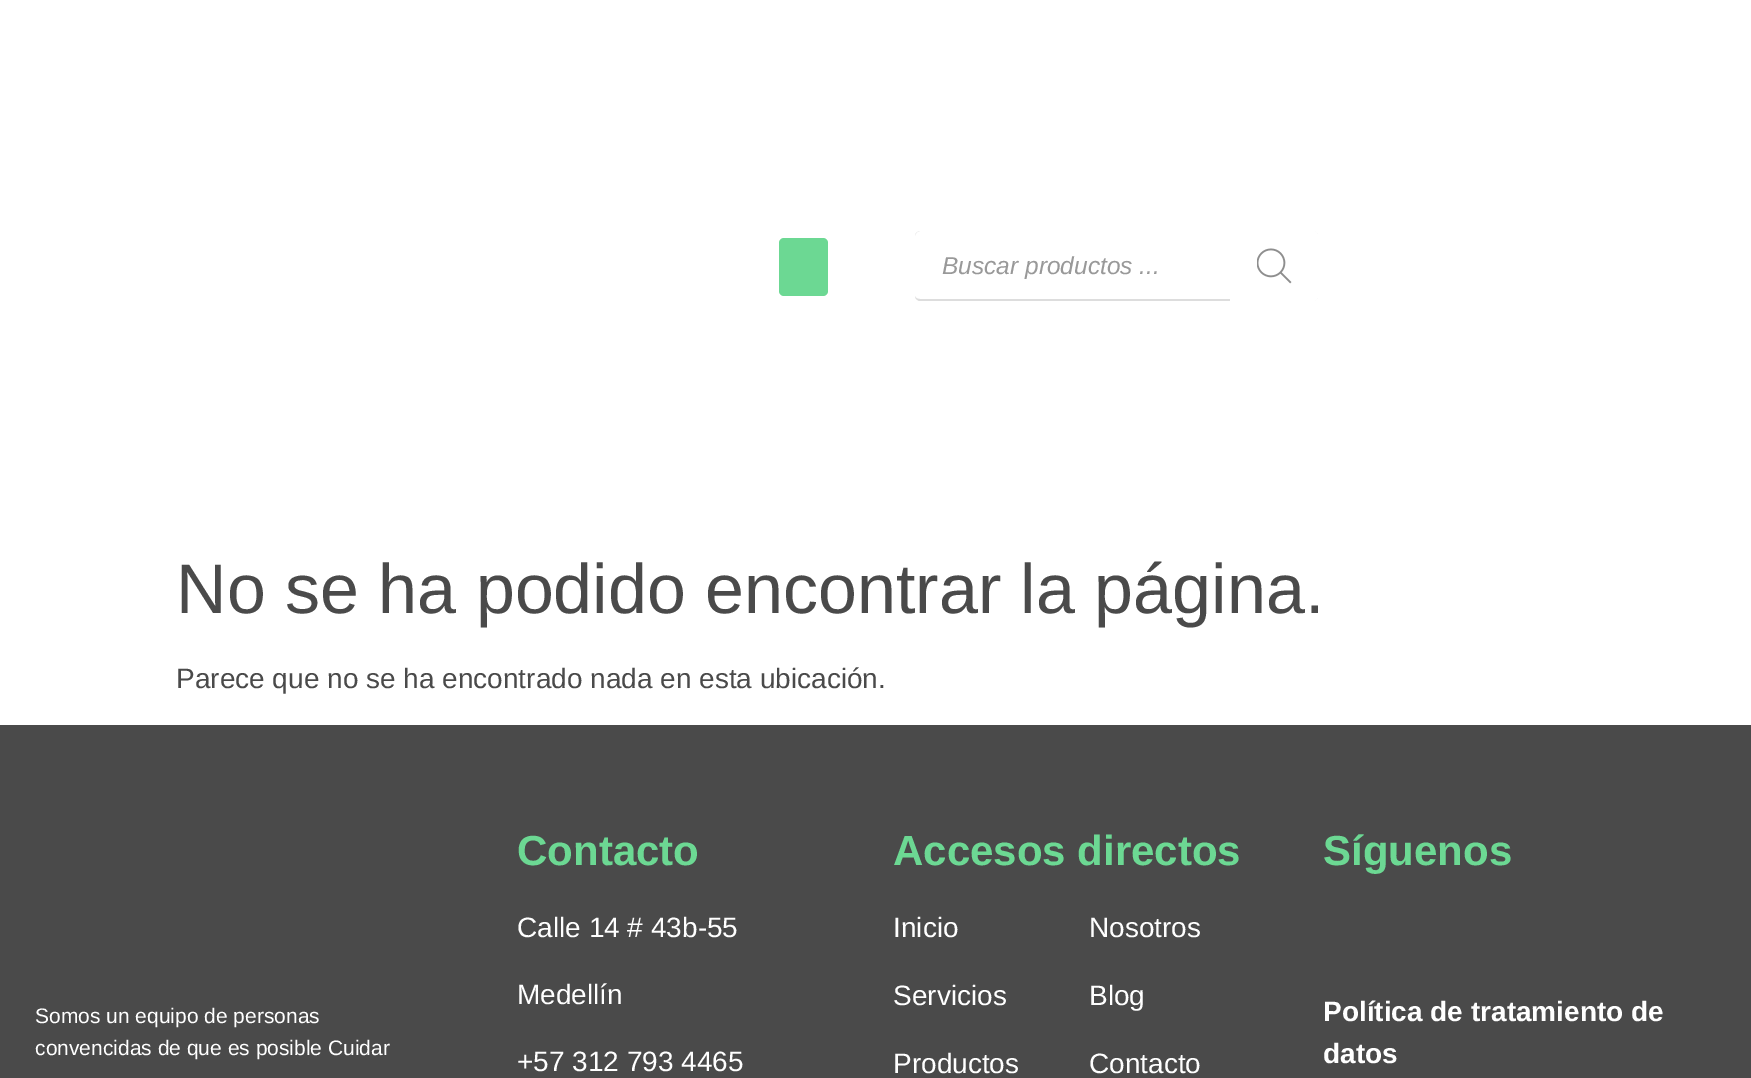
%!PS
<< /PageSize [1751 1078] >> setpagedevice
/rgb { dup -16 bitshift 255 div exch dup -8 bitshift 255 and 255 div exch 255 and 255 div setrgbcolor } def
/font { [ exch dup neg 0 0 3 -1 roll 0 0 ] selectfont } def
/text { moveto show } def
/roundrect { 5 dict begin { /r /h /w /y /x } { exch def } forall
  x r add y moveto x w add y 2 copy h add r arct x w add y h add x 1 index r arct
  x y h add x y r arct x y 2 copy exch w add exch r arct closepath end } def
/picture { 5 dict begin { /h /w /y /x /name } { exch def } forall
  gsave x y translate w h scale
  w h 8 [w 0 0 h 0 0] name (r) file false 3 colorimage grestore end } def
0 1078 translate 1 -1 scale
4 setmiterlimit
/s1 { /LiberationSans-Italic 24.5 font 16#999999 rgb } def
/s2 { /LiberationSans-Regular 70 font 16#4A4A4A rgb } def
/s3 { /LiberationSans-Regular 28 font 16#4A4A4A rgb } def
/s4 { /LiberationSans-Regular 21 font 16#FFFFFF rgb } def
/s5 { /LiberationSans-Bold 42 font 16#6CD893 rgb } def
/s6 { /LiberationSans-Regular 28 font 16#FFFFFF rgb } def
/s7 { /LiberationSans-Bold 28 font 16#FFFFFF rgb } def
16#FFFFFF rgb
0 0 1751 1078 rectfill
16#6CD893 rgb
779 238 49 58 5 roundrect fill
16#DDDDDD rgb
920 231 moveto 1312 231 lineto 1315 231 1318 233 1318 236 curveto 1318 296 lineto 1318 299 1315 301 1312 301 curveto 920 301 lineto 918 301 915 299 915 296 curveto 915 236 lineto 915 233 918 231 920 231 curveto closepath 920 231 moveto 1312 231 lineto 1314 231 1316 233 1316 236 curveto 1316 296 lineto 1316 298 1314 299 1312 299 curveto 920 299 lineto 918 299 915 298 915 296 curveto 915 236 lineto 915 233 918 231 920 231 curveto closepath eofill
s1
(Buscar productos ...) 942 274 text
16#FFFFFF rgb
1230 231 moveto 1314 231 lineto 1316 231 1318 233 1318 235 curveto 1318 297 lineto 1318 299 1316 301 1314 301 curveto 1230 301 lineto closepath fill
(pic1.raw) 1257 248 35 36 picture
s2
(No se ha podido encontrar la página.) 176 613 text
s3
(Parece que no se ha encontrado nada en esta ubicación.) 176 688 text
0 725 1751 353 rectfill
s4
(Somos un equipo de personas) 35 1023 text
(convencidas de que es posible Cuidar) 35 1055 text
s5
(Contacto) 517 865 text
s6
(Calle 14 # 43b-55) 517 937 text
(Medellín) 517 1004 text
(+57 312 793 4465) 517 1071 text
s5
(Accesos directos) 893 865 text
s6
(Inicio) 893 937 text
(Servicios) 893 1005 text
(Productos) 893 1073 text
(Nosotros) 1089 937 text
(Blog) 1089 1005 text
(Contacto) 1089 1073 text
s5
(Síguenos) 1323 865 text
s7
(Política de tratamiento de) 1323 1021 text
(datos) 1323 1063 text
showpage
